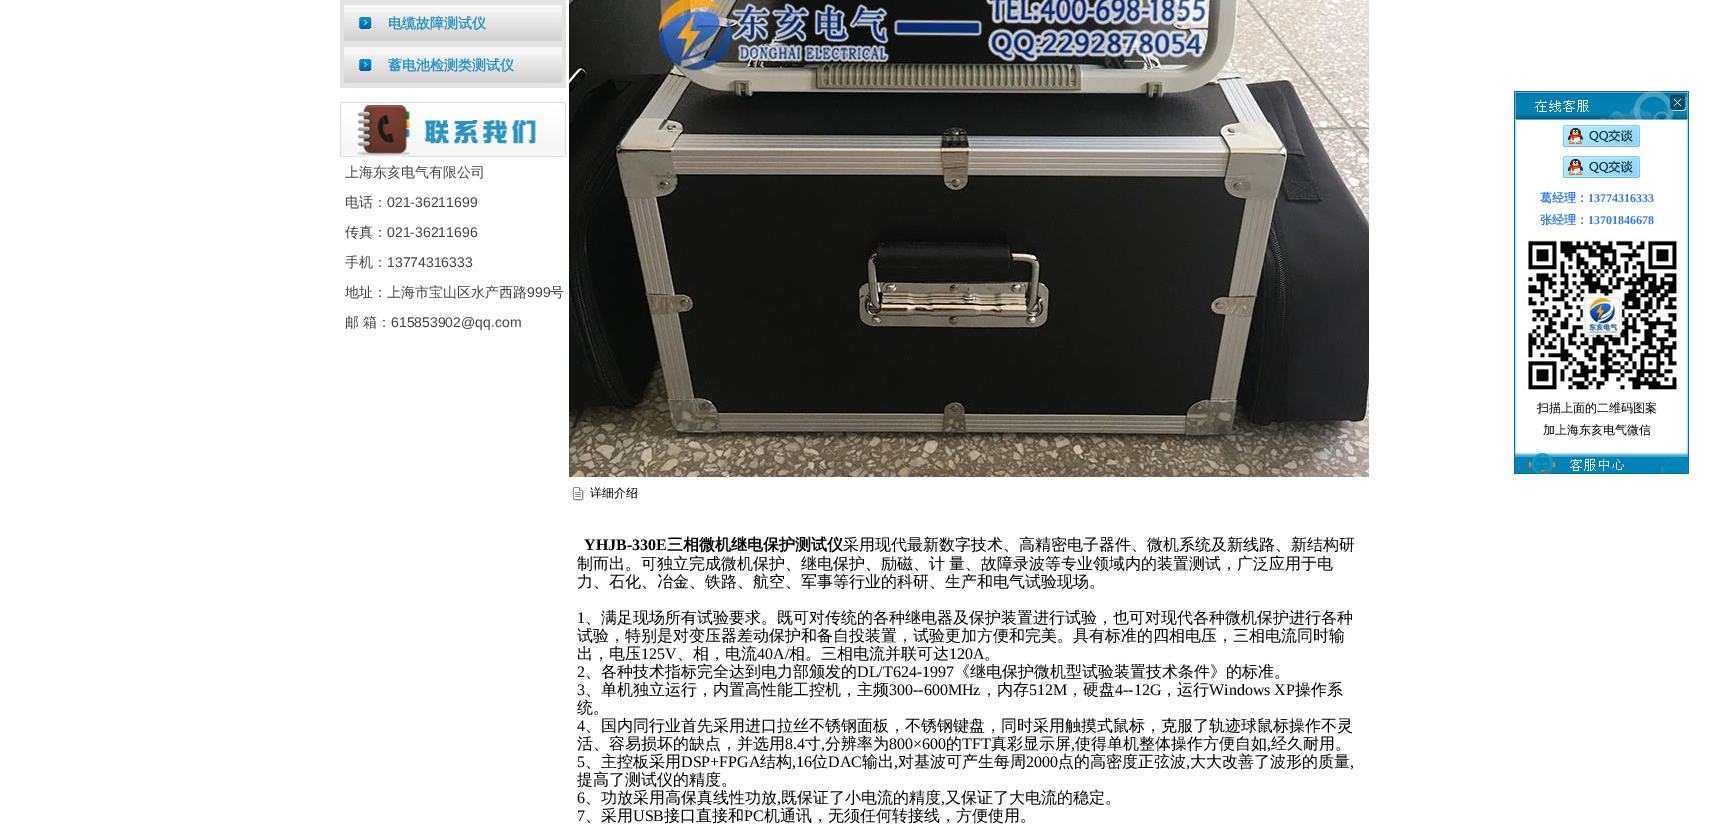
%!PS
<< /PageSize [1709 832] >> setpagedevice
/rgb { dup -16 bitshift 255 div exch dup -8 bitshift 255 and 255 div exch 255 and 255 div setrgbcolor } def
/font { [ exch dup neg 0 0 3 -1 roll 0 0 ] selectfont } def
/text { moveto show } def
/picture { 5 dict begin { /h /w /y /x /name } { exch def } forall
  gsave x y translate w h scale
  w h 8 [w 0 0 h 0 0] name (r) file false 3 colorimage grestore end } def
0 832 translate 1 -1 scale
4 setmiterlimit
/s1 { /WenQuanYiZenHei-Bold 14 font 16#2A94C4 rgb } def
/s2 { /WenQuanYiZenHei-Medium 14 font 16#474443 rgb } def
/s3 { /LiberationSans-Regular 14 font 16#474443 rgb } def
/s4 { /WenQuanYiZenHei-Medium 12 font 16#000000 rgb } def
/s5 { /LiberationSerif-Bold 16 font 16#000000 rgb } def
/s6 { /WenQuanYiZenHei-Bold 16 font 16#000000 rgb } def
/s7 { /WenQuanYiZenHei-Medium 16 font 16#000000 rgb } def
/s8 { /LiberationSerif-Regular 16 font 16#000000 rgb } def
/s9 { /WenQuanYiZenHei-Bold 12 font 16#337FE5 rgb } def
/s10 { /LiberationSerif-Bold 12 font 16#337FE5 rgb } def
16#FFFFFF rgb
0 0 1709 832 rectfill
16#E3E3E3 rgb
340 0 226 88 rectfill
16#F6F6F6 rgb
344 5 218 7 rectfill
(pic1.raw) 344 12 218 29 picture
s1
(电缆故障测试仪) 388 28 text
16#F6F6F6 rgb
344 47 218 7 rectfill
(pic1.raw) 344 54 218 29 picture
s1
(蓄电池检测类测试仪) 388 70 text
(pic2.raw) 340 102 226 55 picture
s2
(上海东亥电气有限公司) 345 177 text
(电话：) 345 207 text
s3
(021-36211699) 387 207 text
s2
(传真：) 345 237 text
s3
(021-36211696) 387 237 text
s2
(手机：) 345 267 text
s3
(13774316333) 387 267 text
s2
(地址：上海市宝山区水产西路) 345 297 text
s3
(999) 527 297 text
s2
(号) 550 297 text
(邮) 345 327 text
(箱：) 363 327 text
s3
(615853902@qq.com) 391 327 text
(pic3.raw) 569 0 800 477 picture
(pic4.raw) 573 487 11 14 picture
s4
(详细介绍) 590 497 text
s5
(YHJB-330E) 584 550 text
s6
(三相微机继电保护测试仪) 667 550 text
s7
(采用现代最新数字技术、高精密电子器件、微机系统及新线路、新结构研) 843 550 text
577 569 moveto -1 0 32 (制而出。可独立完成微机保护、继电保护、励磁、计 量、故障录波等专业领域内的装置测试，广泛应用于电) widthshow
(力、石化、冶金、铁路、航空、军事等行业的科研、生产和电气试验现场。) 577 587 text
s8
(1) 577 623 text
s7
(、满足现场所有试验要求。既可对传统的各种继电器及保护装置进行试验，也可对现代各种微机保护进行各种) 585 623 text
(试验，特别是对变压器差动保护和备自投装置，试验更加方便和完美。具有标准的四相电压，三相电流同时输) 577 641 text
(出，电压) 577 659 text
s8
(125V) 641 659 text
s7
(、相，电流) 677 659 text
s8
(40A/) 757 659 text
s7
(相。三相电流并联可达) 789 659 text
s8
(120A) 949 659 text
s7
(。) 984 659 text
s8
(2) 577 677 text
s7
(、各种技术指标完全达到电力部颁发的) 585 677 text
s8
(DL/T624-1997) 857 677 text
s7
(《继电保护微机型试验装置技术条件》的标准。) 954 677 text
s8
(3) 577 695 text
s7
(、单机独立运行，内置高性能工控机，主频) 585 695 text
s8
(300--600MHz) 889 695 text
s7
(，内存) 981 695 text
s8
(512M) 1029 695 text
s7
(，硬盘) 1067 695 text
s8
(4--12G) 1115 695 text
s7
(，运行) 1161 695 text
s8
(Windows XP) 1209 695 text
s7
(操作系) 1295 695 text
(统。) 577 713 text
s8
(4) 577 731 text
s7
(、国内同行业首先采用进口拉丝不锈钢面板，不锈钢键盘，同时采用触摸式鼠标，克服了轨迹球鼠标操作不灵) 585 731 text
(活、容易损坏的缺点，并选用) 577 749 text
s8
(8.4) 785 749 text
s7
(寸) 805 749 text
(分辨率为) 825 749 text
s8
(800×600) 889 749 text
s7
(的) 946 749 text
s8
(TFT) 962 749 text
s7
(真彩显示屏) 991 749 text
(使得单机整体操作方便自如) 1075 749 text
(经久耐用。) 1271 749 text
s8
(,) 821 749 text
(,) 1071 749 text
(,) 1267 749 text
(5) 577 767 text
s7
(、主控板采用) 585 767 text
s8
(DSP+FPGA) 681 767 text
s7
(结构) 760 767 text
s8
(,16) 792 767 text
s7
(位) 812 767 text
s8
(DAC) 828 767 text
s7
(输出) 862 767 text
s8
(,) 894 767 text
s7
(对基波可产生每周) 898 767 text
s8
(2000) 1026 767 text
s7
(点的高密度正弦波) 1058 767 text
s8
(,) 1186 767 text
s7
(大大改善了波形的质量) 1190 767 text
s8
(,) 1350 767 text
s7
(提高了测试仪的精度。) 577 785 text
s8
(6) 577 803 text
s7
(、功放采用高保真线性功放) 585 803 text
s8
(,) 777 803 text
s7
(既保证了小电流的精度) 781 803 text
s8
(,) 941 803 text
s7
(又保证了大电流的稳定。) 945 803 text
s8
(7) 577 821 text
s7
(、采用) 585 821 text
s8
(USB) 633 821 text
s7
(接口直接和) 664 821 text
s8
(PC) 744 821 text
s7
(机通讯，无须任何转接线，方便使用。) 764 821 text
(pic5.raw) 1514 91 175 29 picture
(pic6.raw) 1514 120 175 329 picture
(pic7.raw) 1563 125 77 22 picture
(pic7.raw) 1563 156 77 22 picture
s9
(葛经理：) 1540 202 text
s10
(13774316333) 1588 202 text
s9
(张经理：) 1540 224 text
s10
(13701846678) 1588 224 text
(pic8.raw) 1522 236 159 156 picture
s4
(扫描上面的二维码图案) 1537 412 text
(加上海东亥电气微信) 1543 434 text
(pic9.raw) 1514 449 175 25 picture
showpage
